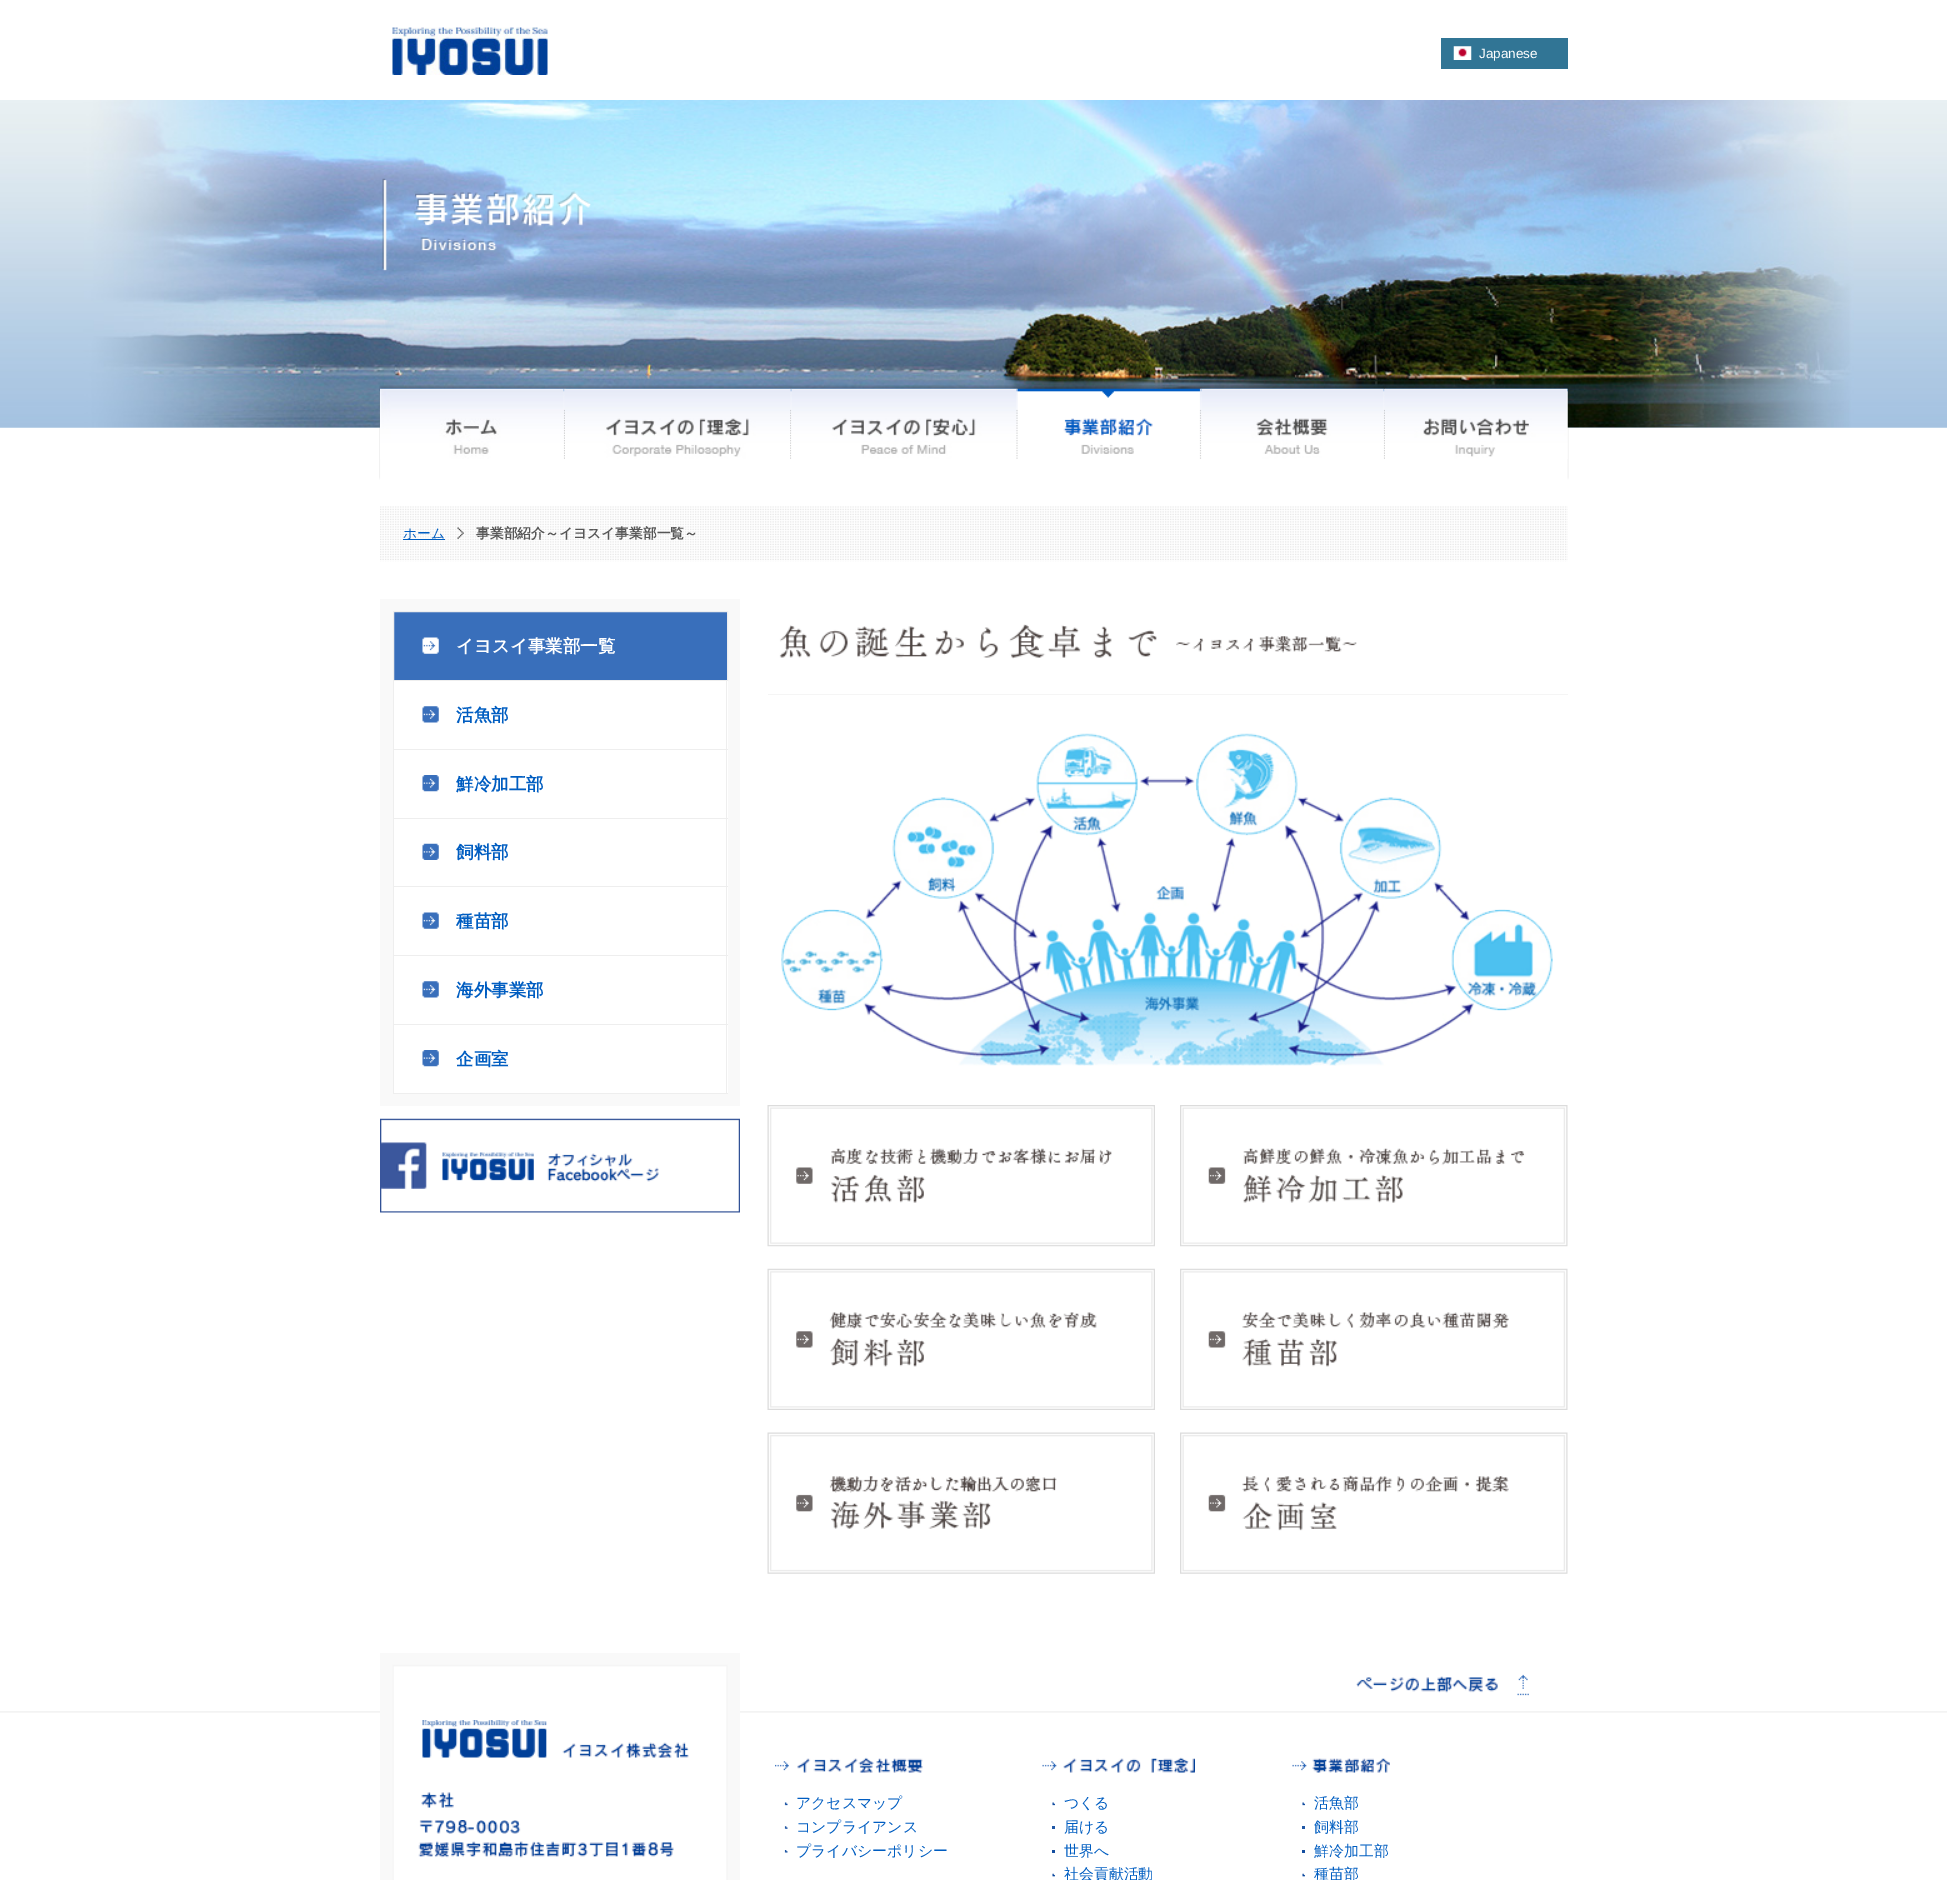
%!PS
<< /PageSize [1947 1880] >> setpagedevice
/rgb { dup -16 bitshift 255 div exch dup -8 bitshift 255 and 255 div exch 255 and 255 div setrgbcolor } def
/font { [ exch dup neg 0 0 3 -1 roll 0 0 ] selectfont } def
/text { moveto show } def
/picture { 5 dict begin { /h /w /y /x /name } { exch def } forall
  gsave x y translate w h scale
  w h 8 [w 0 0 h 0 0] name (r) file false 3 colorimage grestore end } def
0 1880 translate 1 -1 scale
4 setmiterlimit
/s1 { /LiberationSans-Regular 13.5 font 16#FFFFFF rgb } def
/s2 { /WenQuanYiZenHei-Medium 13.8 font 16#005DC1 rgb } def
/s3 { /WenQuanYiZenHei-Bold 13.8 font 16#565656 rgb } def
/s4 { /WenQuanYiZenHei-Bold 17.5 font 16#FFFFFF rgb } def
/s5 { /WenQuanYiZenHei-Bold 17.5 font 16#005DC1 rgb } def
/s6 { /WenQuanYiZenHei-Medium 14.9 font 16#005DC1 rgb } def
16#FFFFFF rgb
0 0 1947 1880 rectfill
(pic1.raw) 0 427 1947 1 picture
(pic2.raw) 0 100 1947 328 picture
(pic3.raw) 392 27 156 48 picture
16#317595 rgb
1441 38 127 31 rectfill
(pic4.raw) 1453 46 19 14 picture
s1
(Japanese) 1479 58 text
(pic5.raw) 382 178 209 93 picture
(pic6.raw) 379 385 1190 95 picture
(pic7.raw) 380 388 184 71 picture
(pic8.raw) 565 388 225 71 picture
(pic9.raw) 791 388 226 71 picture
(pic10.raw) 1201 388 183 71 picture
(pic11.raw) 1385 388 183 71 picture
(pic12.raw) 380 506 1188 56 picture
(pic13.raw) 457 527 7 12 picture
16#005DC1 rgb
403 539 42 1 rectfill
s2
(ホーム) 403 538 text
s3
(事業部紹介～イヨスイ事業部一覧～) 476 538 text
16#F9F9F9 rgb
380 599 360 507 rectfill
16#396FBB rgb
394 612 333 68 rectfill
(pic14.raw) 422 637 17 17 picture
16#EEEEEE rgb
393.5 611.5 334 69 rectstroke
s4
(イヨスイ事業部一覧) 456 652 text
394 681 334 68 rectfill
(pic15.raw) 422 706 17 17 picture
16#EEEEEE rgb
726 681 1 69 rectfill
393 749 335 1 rectfill
393 681 1 69 rectfill
s5
(活魚部) 456 721 text
16#FFFFFF rgb
394 750 334 68 rectfill
(pic16.raw) 422 775 17 17 picture
16#EEEEEE rgb
726 750 1 69 rectfill
393 818 335 1 rectfill
393 750 1 69 rectfill
s5
(鮮冷加工部) 456 790 text
16#FFFFFF rgb
394 819 334 136 rectfill
(pic17.raw) 422 843 17 17 picture
16#EEEEEE rgb
726 819 1 137 rectfill
393 886 335 1 rectfill
393 819 1 69 rectfill
s5
(飼料部) 456 858 text
(pic18.raw) 422 912 17 17 picture
16#EEEEEE rgb
393 955 335 1 rectfill
393 888 1 68 rectfill
s5
(種苗部) 456 927 text
16#FFFFFF rgb
394 956 334 68 rectfill
(pic15.raw) 422 981 17 17 picture
16#EEEEEE rgb
726 956 1 69 rectfill
393 1024 335 1 rectfill
393 956 1 69 rectfill
s5
(海外事業部) 456 996 text
16#FFFFFF rgb
394 1025 334 68 rectfill
(pic19.raw) 422 1050 17 17 picture
16#EEEEEE rgb
726 1025 1 69 rectfill
393 1093 335 1 rectfill
393 1025 1 69 rectfill
s5
(企画室) 456 1065 text
(pic20.raw) 380 1118 360 95 picture
16#F5F5F5 rgb
768 694 800 1 rectfill
(pic21.raw) 779 624 578 35 picture
(pic22.raw) 863 776 611 290 picture
(pic23.raw) 1036 733 102 103 picture
(pic24.raw) 1195 733 103 103 picture
(pic25.raw) 892 797 103 102 picture
(pic26.raw) 1339 797 103 102 picture
(pic27.raw) 781 909 102 102 picture
(pic28.raw) 1451 909 102 102 picture
(pic29.raw) 767 1105 388 142 picture
(pic30.raw) 1180 1105 388 142 picture
(pic31.raw) 767 1268 388 142 picture
(pic32.raw) 1180 1268 388 142 picture
(pic33.raw) 767 1432 388 142 picture
(pic34.raw) 1180 1432 388 142 picture
(pic35.raw) 0 1711 1947 2 picture
(pic36.raw) 380 1653 360 227 picture
(pic37.raw) 422 1720 267 38 picture
(pic38.raw) 421 1792 33 16 picture
(pic39.raw) 418 1820 256 38 picture
(pic40.raw) 1356 1674 173 22 picture
(pic41.raw) 775 1757 148 16 picture
(pic42.raw) 784 1802 4 4 picture
s6
(アクセスマップ) 796 1808 text
(pic43.raw) 784 1826 4 3 picture
(コンプライアンス) 796 1832 text
(pic44.raw) 784 1850 4 3 picture
(プライバシーポリシー) 796 1856 text
(pic45.raw) 1042 1757 153 16 picture
(pic46.raw) 1052 1802 3 4 picture
(つくる) 1064 1808 text
16#2057A5 rgb
1052 1826 3 3 rectfill
s6
(届ける) 1064 1832 text
16#144EA0 rgb
1052 1850 3 3 rectfill
s6
(世界へ) 1064 1856 text
(pic47.raw) 1052 1873 3 4 picture
(社会貢献活動) 1064 1879 text
(pic48.raw) 1292 1758 98 15 picture
(pic46.raw) 1302 1802 3 4 picture
(活魚部) 1314 1808 text
16#2057A5 rgb
1302 1826 3 3 rectfill
s6
(飼料部) 1314 1832 text
16#144EA0 rgb
1302 1850 3 3 rectfill
s6
(鮮冷加工部) 1314 1856 text
(pic47.raw) 1302 1873 3 4 picture
(種苗部) 1314 1879 text
showpage
